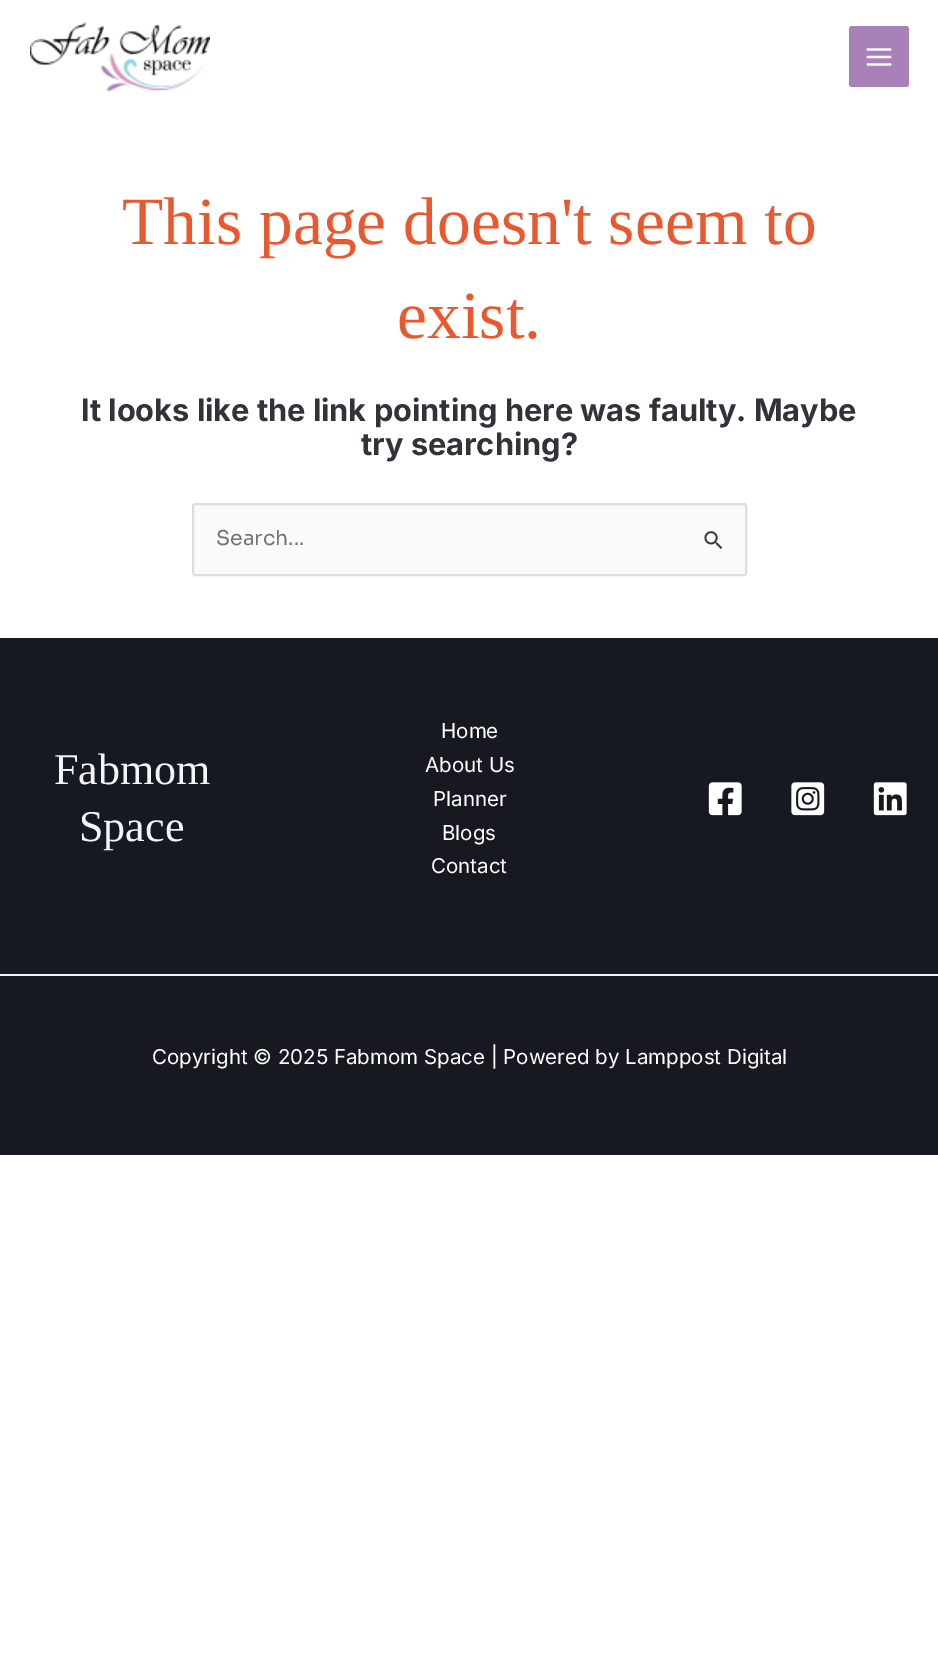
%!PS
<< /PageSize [938 1667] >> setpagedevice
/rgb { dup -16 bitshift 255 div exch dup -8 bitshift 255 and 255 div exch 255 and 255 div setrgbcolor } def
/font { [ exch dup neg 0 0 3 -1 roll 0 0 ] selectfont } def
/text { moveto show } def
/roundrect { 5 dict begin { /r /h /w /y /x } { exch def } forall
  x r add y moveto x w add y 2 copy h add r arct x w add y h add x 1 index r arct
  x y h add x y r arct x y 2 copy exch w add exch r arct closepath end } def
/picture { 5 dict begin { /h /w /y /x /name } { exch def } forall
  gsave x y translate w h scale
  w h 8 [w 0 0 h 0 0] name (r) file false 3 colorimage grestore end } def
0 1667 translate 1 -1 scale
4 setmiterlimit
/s1 { /LiberationSerif-Regular 67.5 font 16#E95930 rgb } def
/s2 { /Inter-Bold 30.75 font 16#30333A rgb } def
/s3 { /Sora-Regular 20.5 font 16#757575 rgb } def
/s4 { /LiberationSerif-Regular 44 font 16#F2F5F7 rgb } def
/s5 { /Inter-Regular 20.5 font 16#FFFFFF rgb } def
16#FFFFFF rgb
0 0 938 1667 rectfill
(pic1.raw) 30 22 180 70 picture
16#A981B9 rgb
849 26 60 61 3 roundrect fill
(pic2.raw) 866 48 26 18 picture
s1
(This page doesn't seem to) 122 244 text
(exist.) 397 338 text
s2
(It looks like the link pointing here was faulty. Maybe) 81 421 text
(try searching?) 361 455 text
16#FAFAFA rgb
193 504 553 71 2 roundrect gsave fill grestore
16#DDDDDD rgb
2 setlinewidth
stroke
s3
(Search...) 216 545 text
(pic3.raw) 704 531 18 18 picture
16#171921 rgb
0 638 938 336 rectfill
s4
(Fabmom) 54 784 text
(Space) 79 841 text
s5
(Home) 441 738 text
(About Us) 425 772 text
(Planner) 433 806 text
(Blogs) 442 840 text
(Contact) 431 873 text
(pic4.raw) 708 782 34 34 picture
(pic5.raw) 791 782 34 34 picture
(pic6.raw) 873 782 34 34 picture
16#171921 rgb
0 976 938 179 rectfill
16#F2F5F7 rgb
0 974 938 2 rectfill
s5
(Copyright © 2025 Fabmom Space | Powered by Lamppost Digital) 152 1064 text
showpage
